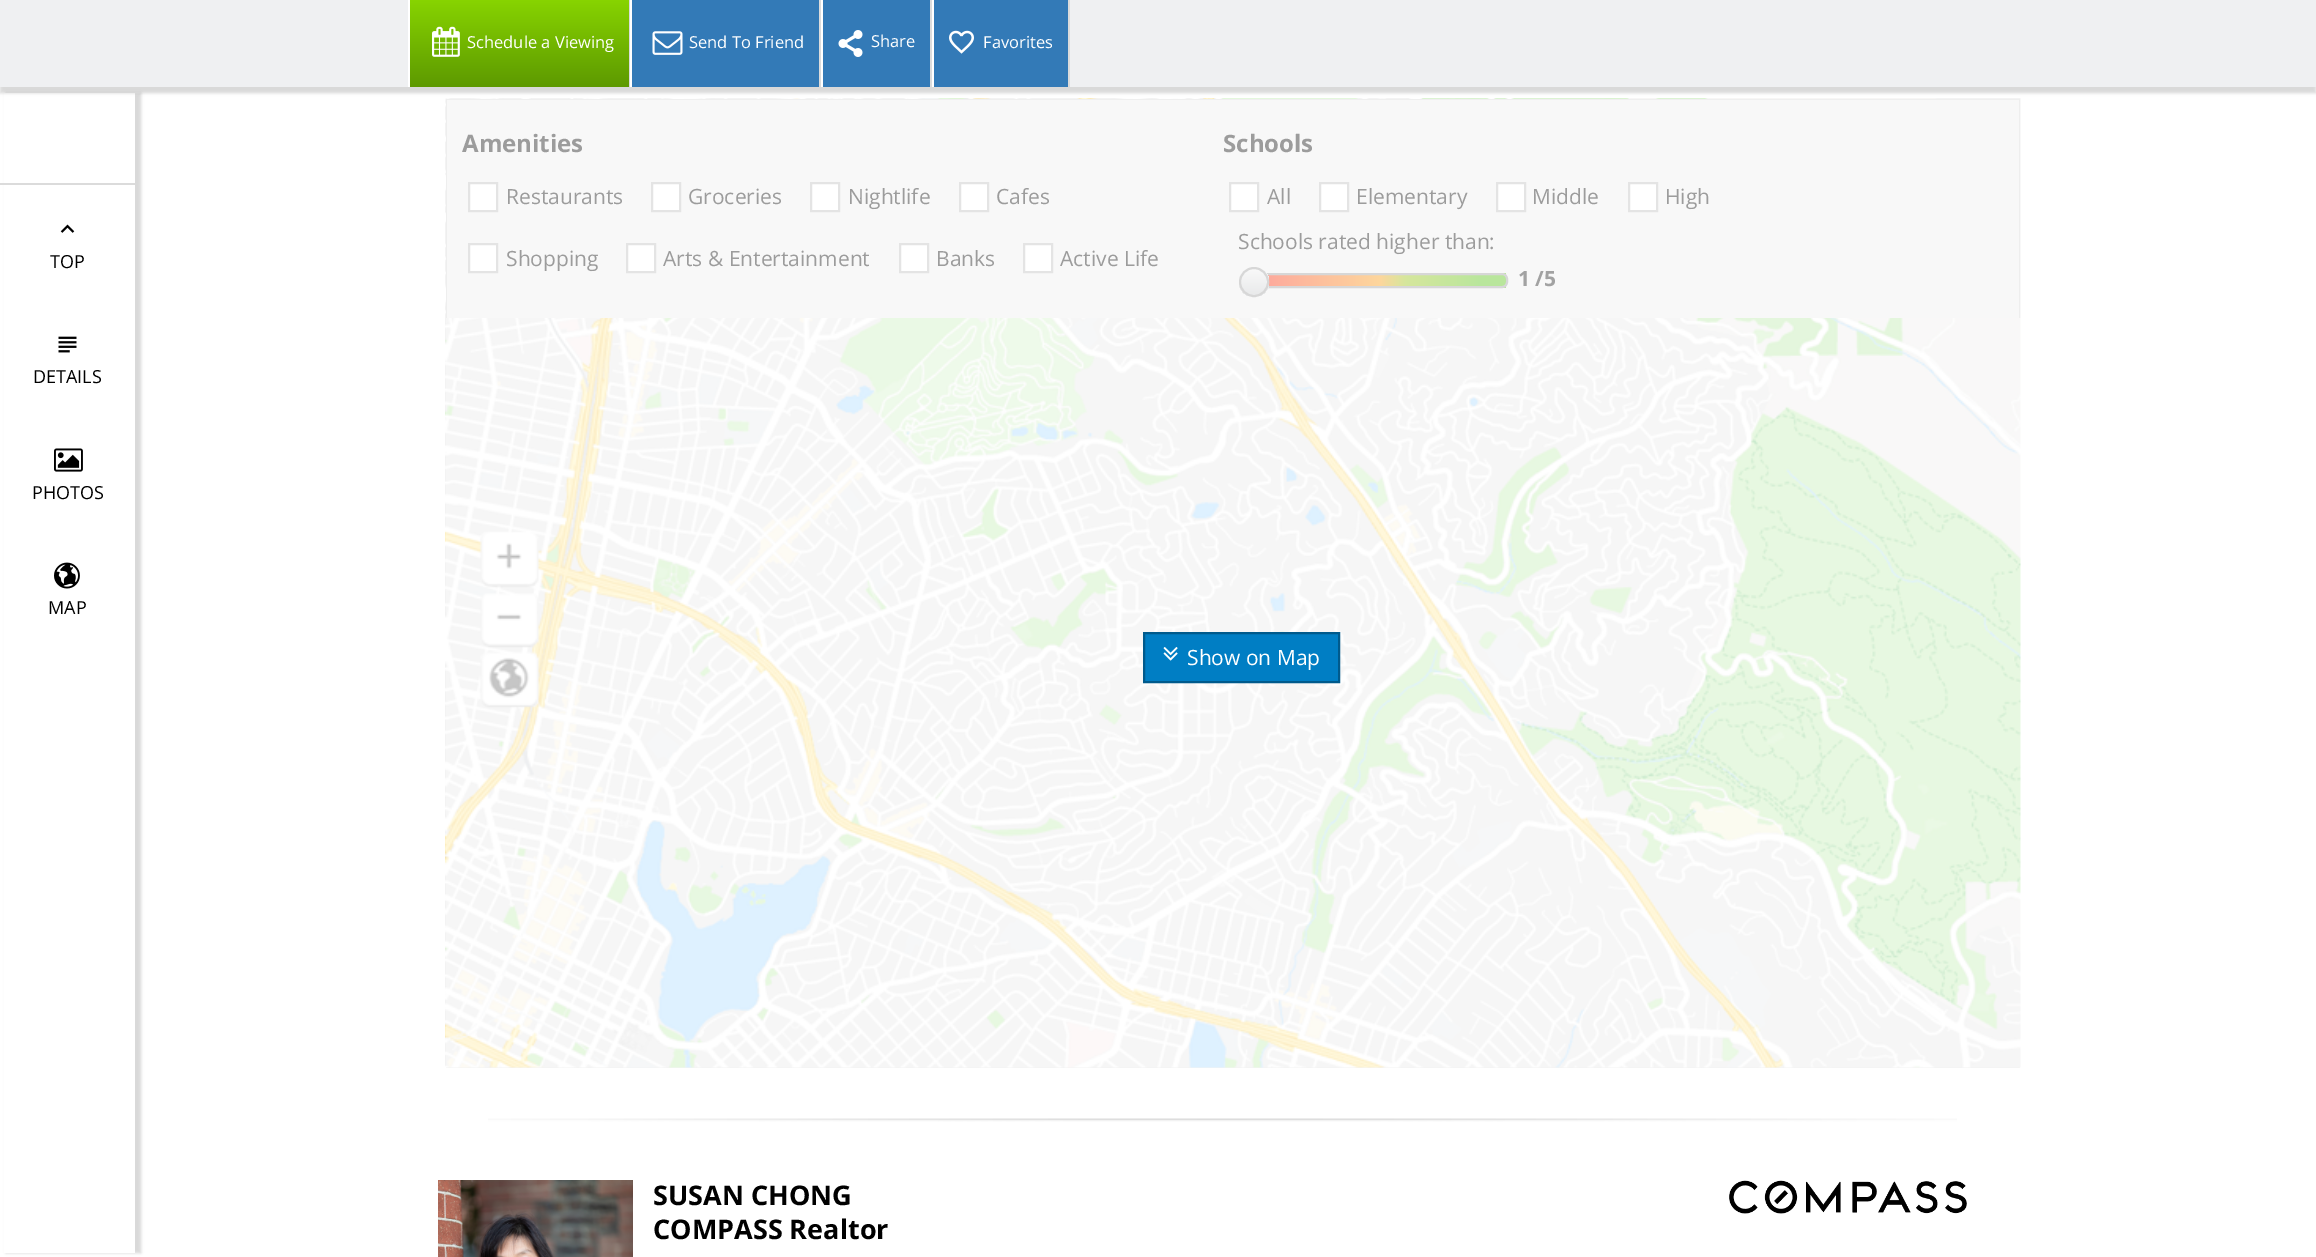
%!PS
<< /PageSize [2316 1257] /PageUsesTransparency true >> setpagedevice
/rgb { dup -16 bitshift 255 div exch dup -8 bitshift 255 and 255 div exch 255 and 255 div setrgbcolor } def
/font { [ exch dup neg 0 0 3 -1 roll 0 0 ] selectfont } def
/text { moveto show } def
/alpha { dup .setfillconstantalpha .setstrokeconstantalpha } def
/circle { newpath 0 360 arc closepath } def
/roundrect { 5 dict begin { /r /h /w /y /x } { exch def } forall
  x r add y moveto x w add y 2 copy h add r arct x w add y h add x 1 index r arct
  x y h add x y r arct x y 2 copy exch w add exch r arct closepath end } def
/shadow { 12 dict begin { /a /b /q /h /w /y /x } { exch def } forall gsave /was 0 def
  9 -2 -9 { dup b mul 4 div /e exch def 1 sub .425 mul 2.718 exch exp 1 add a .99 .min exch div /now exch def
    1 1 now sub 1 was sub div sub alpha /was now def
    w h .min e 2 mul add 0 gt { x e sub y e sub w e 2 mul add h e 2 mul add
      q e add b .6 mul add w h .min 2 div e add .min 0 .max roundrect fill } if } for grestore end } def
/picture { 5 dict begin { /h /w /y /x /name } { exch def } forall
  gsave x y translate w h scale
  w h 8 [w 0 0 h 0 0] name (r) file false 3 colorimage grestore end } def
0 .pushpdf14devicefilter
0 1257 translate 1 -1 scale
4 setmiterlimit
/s1 { /OpenSans-Regular 16.5 font 16#FFFFFF rgb } def
/s2 { /OpenSans-Regular 18 font 16#000000 rgb } def
/s3 { /OpenSans-Bold 24 font 16#9C9C9C rgb } def
/s4 { /OpenSans-Regular 21 font 16#9C9C9C rgb } def
/s5 { /OpenSans-Bold 21 font 16#A2A2A2 rgb } def
/s6 { /OpenSans-Regular 21 font 16#FFFFFF rgb } def
/s7 { /OpenSans-Bold 27 font 16#000000 rgb } def
16#FFFFFF rgb
0 0 2316 1257 rectfill
16#000000 rgb
6 93 135 1160 0 1.5 0.15 shadow
16#FFFFFF rgb
4 93 131 1160 rectfill
0.3 alpha
16#D7D7D7 rgb
2020 1068 moveto 446 1068 lineto 447 1066 lineto 2019 1066 lineto closepath fill
1 alpha
(pic9.raw) 445 98 1576 970 picture
16#000000 rgb
0 6 2316 87 0 1.5 0.15 shadow
16#EFF0F2 rgb
0 0 2316 87 rectfill
gsave 410 0 moveto 629 0 lineto 629 87 lineto 410 87 lineto closepath clip newpath
<< /ShadingType 2 /ColorSpace /DeviceRGB /Coords [519 0 519 87] /Extend [true true] /Function << /FunctionType 3 /Domain [0 1] /Functions [<< /FunctionType 2 /Domain [0 1] /C0 [0.529 0.827 0] /C1 [0.529 0.827 0] /N 1 >> << /FunctionType 2 /Domain [0 1] /C0 [0.529 0.827 0] /C1 [0.365 0.6 0] /N 1 >>] /Bounds [0.01] /Encode [0 1 0 1] >> >> shfill grestore
16#DBDBDB rgb
629 0 1 87 rectfill
16#FFFFFF rgb
408 0 2 87 rectfill
(pic1.raw) 432 26 28 31 picture
s1
(Schedule a Viewing) 467 48 text
16#337AB7 rgb
632 0 187 87 rectfill
16#DBDBDB rgb
819 0 2 87 rectfill
16#FFFFFF rgb
630 0 2 87 rectfill
(pic2.raw) 652 31 31 24 picture
(Send To Friend) 689 48 text
16#337AB7 rgb
823 0 107 87 rectfill
16#DBDBDB rgb
930 0 2 87 rectfill
16#FFFFFF rgb
821 0 2 87 rectfill
(pic3.raw) 838 30 25 27 picture
(Share) 871 47 text
16#337AB7 rgb
934 0 134 87 rectfill
16#DBDBDB rgb
1068 0 2 87 rectfill
16#FFFFFF rgb
932 0 2 87 rectfill
(pic4.raw) 949 30 25 24 picture
(Favorites) 983 48 text
16#DBDBDB rgb
0 183 135 2 rectfill
(pic5.raw) 60 224 15 9 picture
s2
(TOP) 50 268 text
(pic6.raw) 58 336 19 17 picture
(DETAILS) 33 383 text
(pic7.raw) 54 448 29 24 picture
(PHOTOS) 32 499 text
(pic8.raw) 54 562 26 27 picture
(MAP) 48 614 text
16#F8F8F8 rgb
446 99 1575 219 rectfill
16#EFEFEF rgb
446 99 moveto 2020 99 lineto 2019 100 lineto 447 100 lineto closepath fill
0.3 alpha
16#D7D7D7 rgb
2020 99 moveto 2020 318 lineto 2019 318 lineto 2019 100 lineto closepath fill
446 318 moveto 446 99 lineto 447 100 lineto 447 318 lineto closepath fill
1 alpha
s3
(Amenities) 462 152 text
16#FFFFFF rgb
469 183 moveto 497 183 lineto 497 211 lineto 469 211 lineto closepath gsave fill grestore
16#E4E4E4 rgb
2 setlinewidth
stroke
s4
(Restaurants) 506 204 text
16#FFFFFF rgb
652 183 moveto 680 183 lineto 680 211 lineto 652 211 lineto closepath gsave fill grestore
16#E4E4E4 rgb
stroke
s4
(Groceries) 688 204 text
16#FFFFFF rgb
811 183 moveto 839 183 lineto 839 211 lineto 811 211 lineto closepath gsave fill grestore
16#E4E4E4 rgb
stroke
s4
(Nightlife) 848 204 text
16#FFFFFF rgb
960 183 moveto 988 183 lineto 988 211 lineto 960 211 lineto closepath gsave fill grestore
16#E4E4E4 rgb
stroke
s4
(Cafes) 996 204 text
16#FFFFFF rgb
469 244 moveto 497 244 lineto 497 272 lineto 469 272 lineto closepath gsave fill grestore
16#E4E4E4 rgb
stroke
s4
(Shopping) 506 266 text
16#FFFFFF rgb
627 244 moveto 655 244 lineto 655 272 lineto 627 272 lineto closepath gsave fill grestore
16#E4E4E4 rgb
stroke
s4
(Arts & Entertainment) 663 266 text
16#FFFFFF rgb
900 244 moveto 928 244 lineto 928 272 lineto 900 272 lineto closepath gsave fill grestore
16#E4E4E4 rgb
stroke
s4
(Banks) 936 266 text
16#FFFFFF rgb
1024 244 moveto 1052 244 lineto 1052 272 lineto 1024 272 lineto closepath gsave fill grestore
16#E4E4E4 rgb
stroke
s4
(Active Life) 1060 266 text
s3
(Schools) 1223 152 text
16#FFFFFF rgb
1230 183 moveto 1258 183 lineto 1258 211 lineto 1230 211 lineto closepath gsave fill grestore
16#E4E4E4 rgb
stroke
s4
(All) 1267 204 text
16#FFFFFF rgb
1320 183 moveto 1348 183 lineto 1348 211 lineto 1320 211 lineto closepath gsave fill grestore
16#E4E4E4 rgb
stroke
s4
(Elementary) 1356 204 text
16#FFFFFF rgb
1497 183 moveto 1525 183 lineto 1525 211 lineto 1497 211 lineto closepath gsave fill grestore
16#E4E4E4 rgb
stroke
s4
(Middle) 1532 204 text
16#FFFFFF rgb
1629 183 moveto 1657 183 lineto 1657 211 lineto 1629 211 lineto closepath gsave fill grestore
16#E4E4E4 rgb
stroke
s4
(High) 1665 204 text
(Schools rated higher than:) 1238 249 text
gsave
1253 273 255 15 6 roundrect clip newpath
gsave 1267 273 moveto 1506 273 lineto 1506 288 lineto 1267 288 lineto closepath clip newpath
<< /ShadingType 2 /ColorSpace /DeviceRGB /Coords [1254 281 1506 281] /Extend [true true] /Function << /FunctionType 3 /Domain [0 1] /Functions [<< /FunctionType 2 /Domain [0 1] /C0 [0.992 0.647 0.612] /C1 [0.992 0.686 0.612] /N 1 >> << /FunctionType 2 /Domain [0 1] /C0 [0.992 0.686 0.612] /C1 [0.992 0.725 0.612] /N 1 >> << /FunctionType 2 /Domain [0 1] /C0 [0.992 0.725 0.612] /C1 [0.992 0.765 0.612] /N 1 >> << /FunctionType 2 /Domain [0 1] /C0 [0.992 0.765 0.612] /C1 [0.992 0.8 0.612] /N 1 >> << /FunctionType 2 /Domain [0 1] /C0 [0.992 0.8 0.612] /C1 [0.992 0.839 0.612] /N 1 >> << /FunctionType 2 /Domain [0 1] /C0 [0.992 0.839 0.612] /C1 [0.839 0.902 0.612] /N 1 >> << /FunctionType 2 /Domain [0 1] /C0 [0.839 0.902 0.612] /C1 [0.8 0.902 0.612] /N 1 >> << /FunctionType 2 /Domain [0 1] /C0 [0.8 0.902 0.612] /C1 [0.765 0.902 0.612] /N 1 >> << /FunctionType 2 /Domain [0 1] /C0 [0.765 0.902 0.612] /C1 [0.725 0.902 0.612] /N 1 >> << /FunctionType 2 /Domain [0 1] /C0 [0.725 0.902 0.612] /C1 [0.725 0.902 0.612] /N 1 >>] /Bounds [0.1 0.2 0.3 0.4 0.5 0.6 0.7 0.8 0.9] /Encode [0 1 0 1 0 1 0 1 0 1 0 1 0 1 0 1 0 1 0 1] >> >> shfill grestore
grestore
16#D7D7D7 rgb
1254 274 253 13 5 roundrect stroke
gsave
1239 267 30 30 15 roundrect clip newpath
gsave 1239 269 moveto 1269 269 lineto 1269 296 lineto 1239 296 lineto closepath clip newpath
<< /ShadingType 2 /ColorSpace /DeviceRGB /Coords [1254 269 1254 296] /Extend [true true] /Function << /FunctionType 2 /Domain [0 1] /C0 [0.976 0.976 0.976] /C1 [0.91 0.914 0.918] /N 1 >> >> shfill grestore
grestore
1254 282 14 circle stroke
s5
(1 /5) 1518 286 text
16#007EC4 rgb
1144 633 moveto 1339 633 lineto 1339 682 lineto 1144 682 lineto closepath gsave fill grestore
16#005A8C rgb
stroke
(pic10.raw) 1163 647 15 14 picture
s6
(Show on Map) 1187 665 text
(pic11.raw) 488 1118 1469 4 picture
(pic12.raw) 438 1180 195 77 picture
s7
(SUSAN CHONG) 653 1205 text
(COMPASS Realtor) 653 1239 text
(pic13.raw) 1729 1180 238 34 picture
.poppdf14devicefilter showpage
